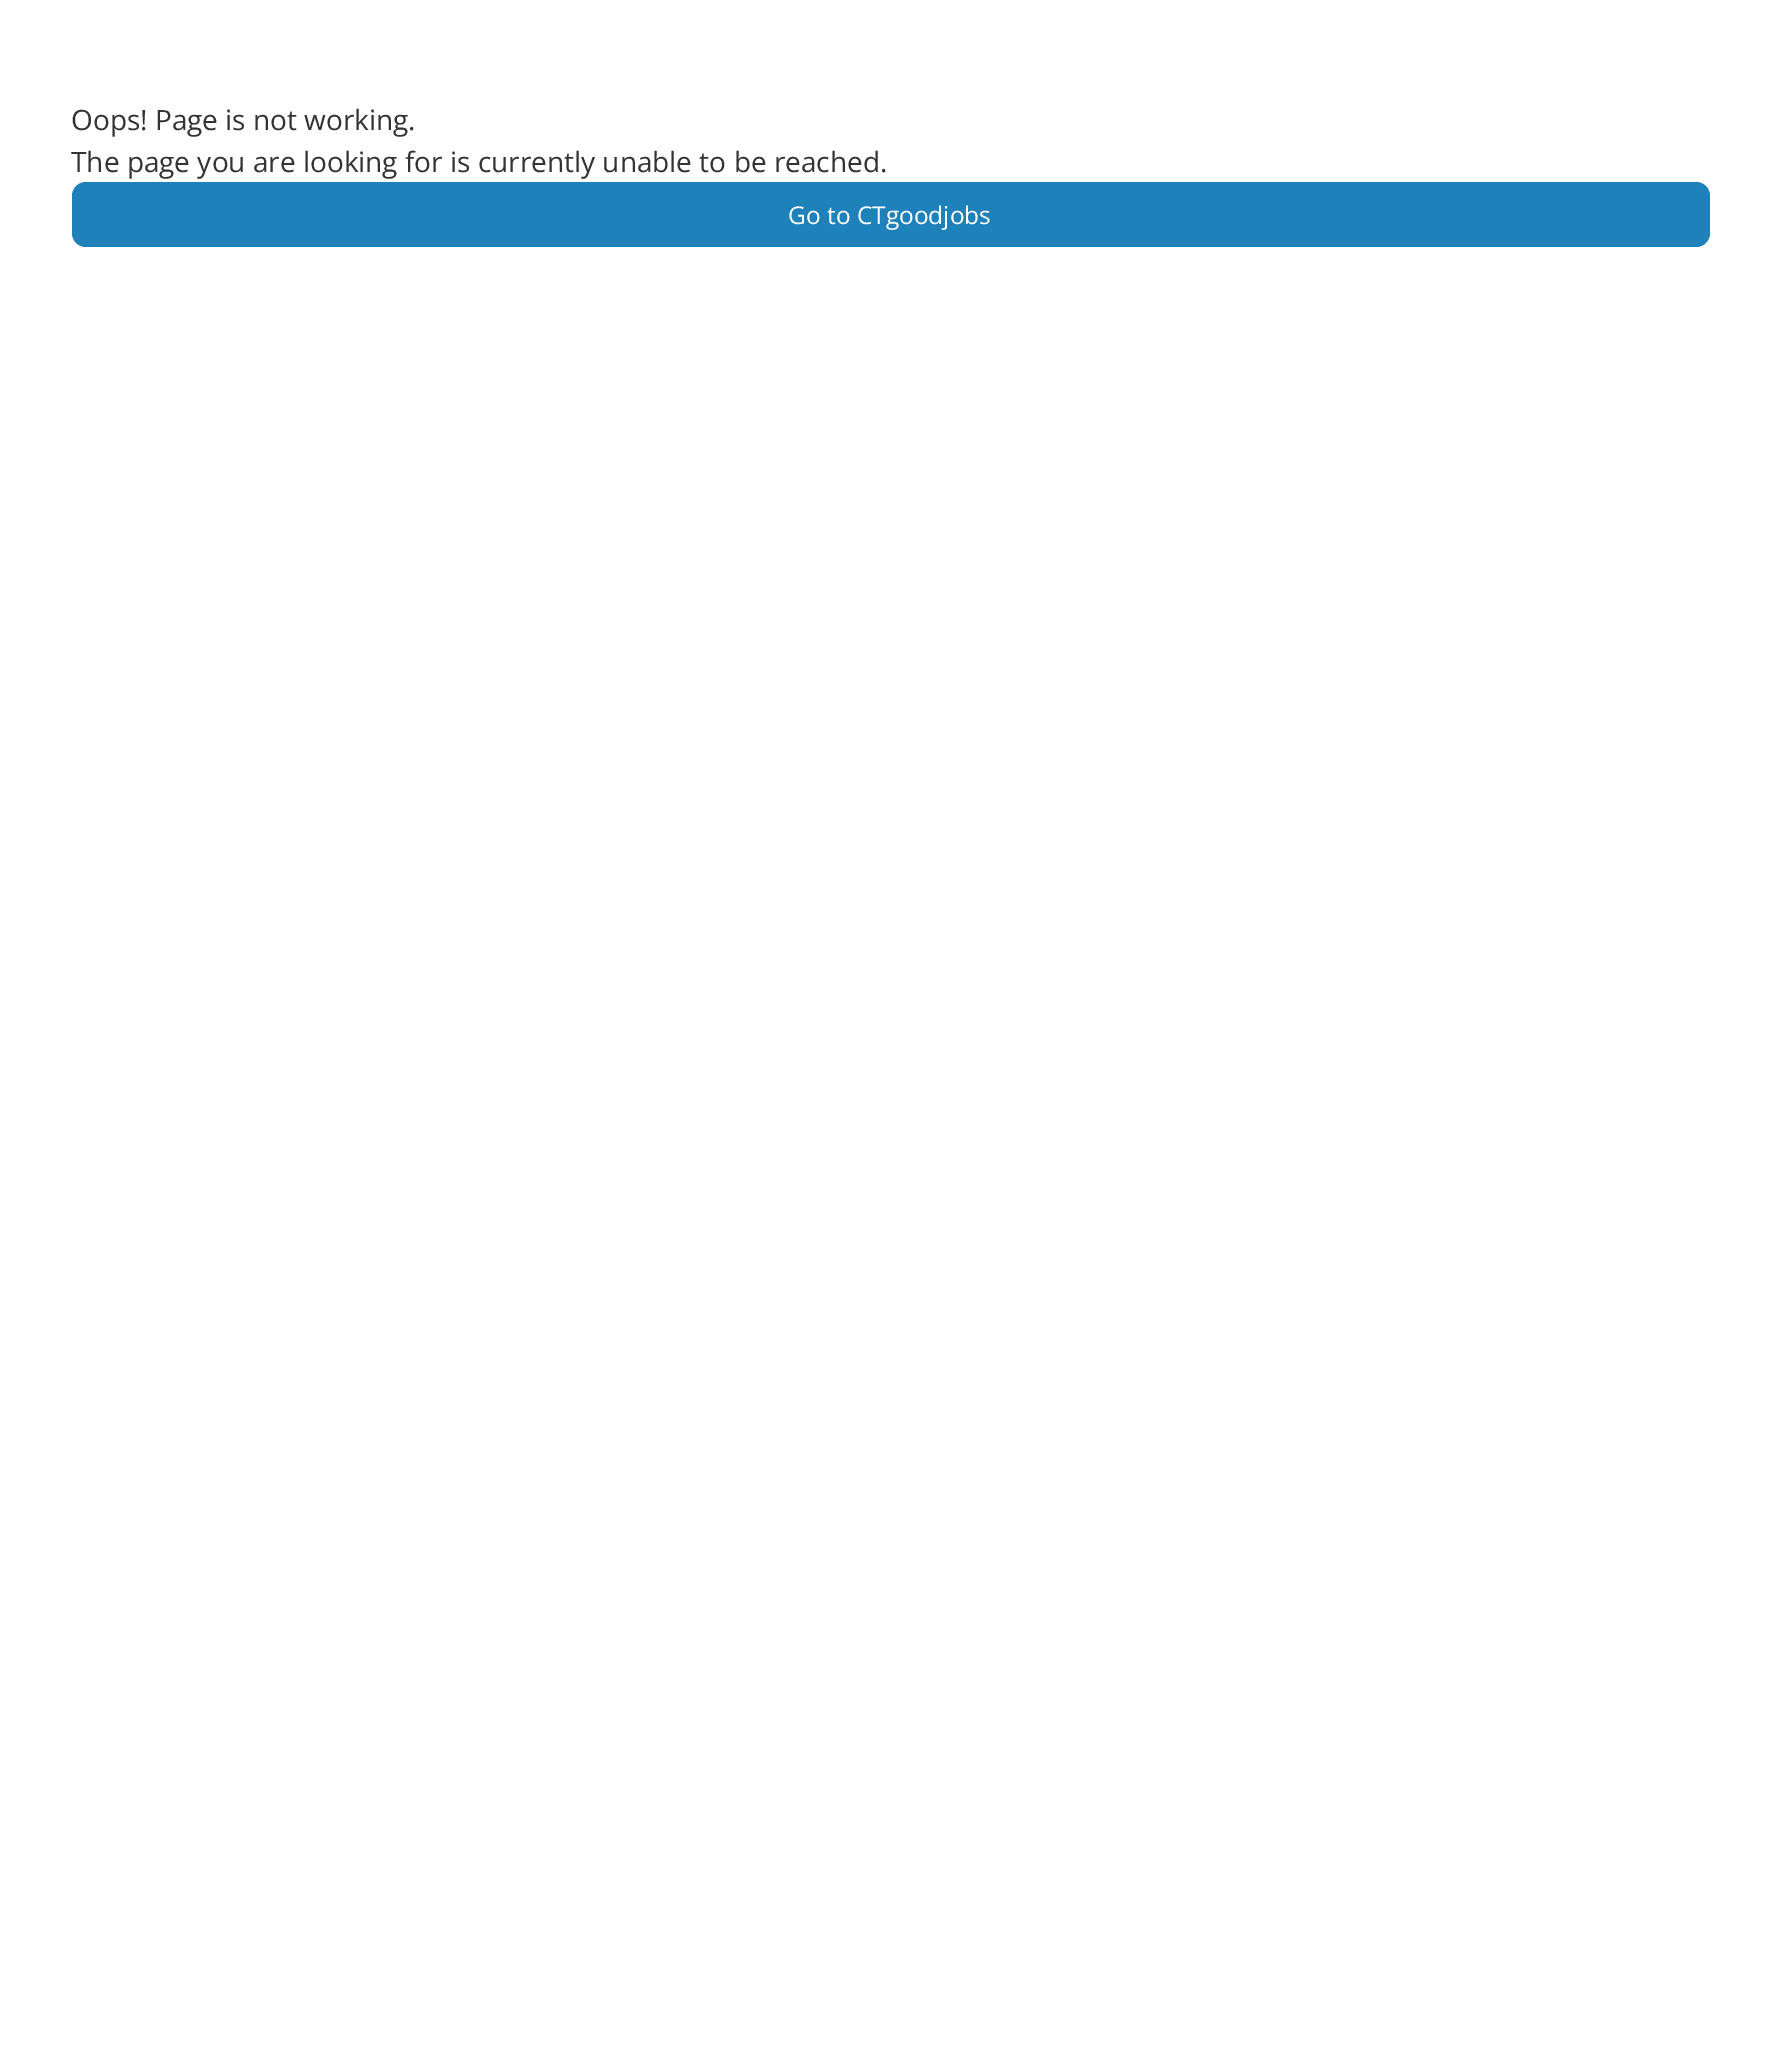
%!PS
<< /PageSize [1779 2052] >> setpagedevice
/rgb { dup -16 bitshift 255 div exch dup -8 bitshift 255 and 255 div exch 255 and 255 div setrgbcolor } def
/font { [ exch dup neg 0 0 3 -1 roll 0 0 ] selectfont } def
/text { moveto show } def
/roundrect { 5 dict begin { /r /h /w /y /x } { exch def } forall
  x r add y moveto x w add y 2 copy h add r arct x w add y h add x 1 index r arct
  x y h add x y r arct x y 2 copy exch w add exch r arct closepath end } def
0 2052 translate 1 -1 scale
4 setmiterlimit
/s1 { /OpenSans-Regular 28 font 16#333333 rgb } def
/s2 { /OpenSans-Regular 24.5 font 16#FFFFFF rgb } def
16#FFFFFF rgb
0 0 1779 2052 rectfill
s1
(Oops! Page is not working.) 71 130 text
(The page you are looking for is currently unable to be reached.) 71 172 text
16#1F81B9 rgb
72 182 1638 65 14 roundrect fill
s2
(Go to CTgoodjobs) 788 224 text
showpage
